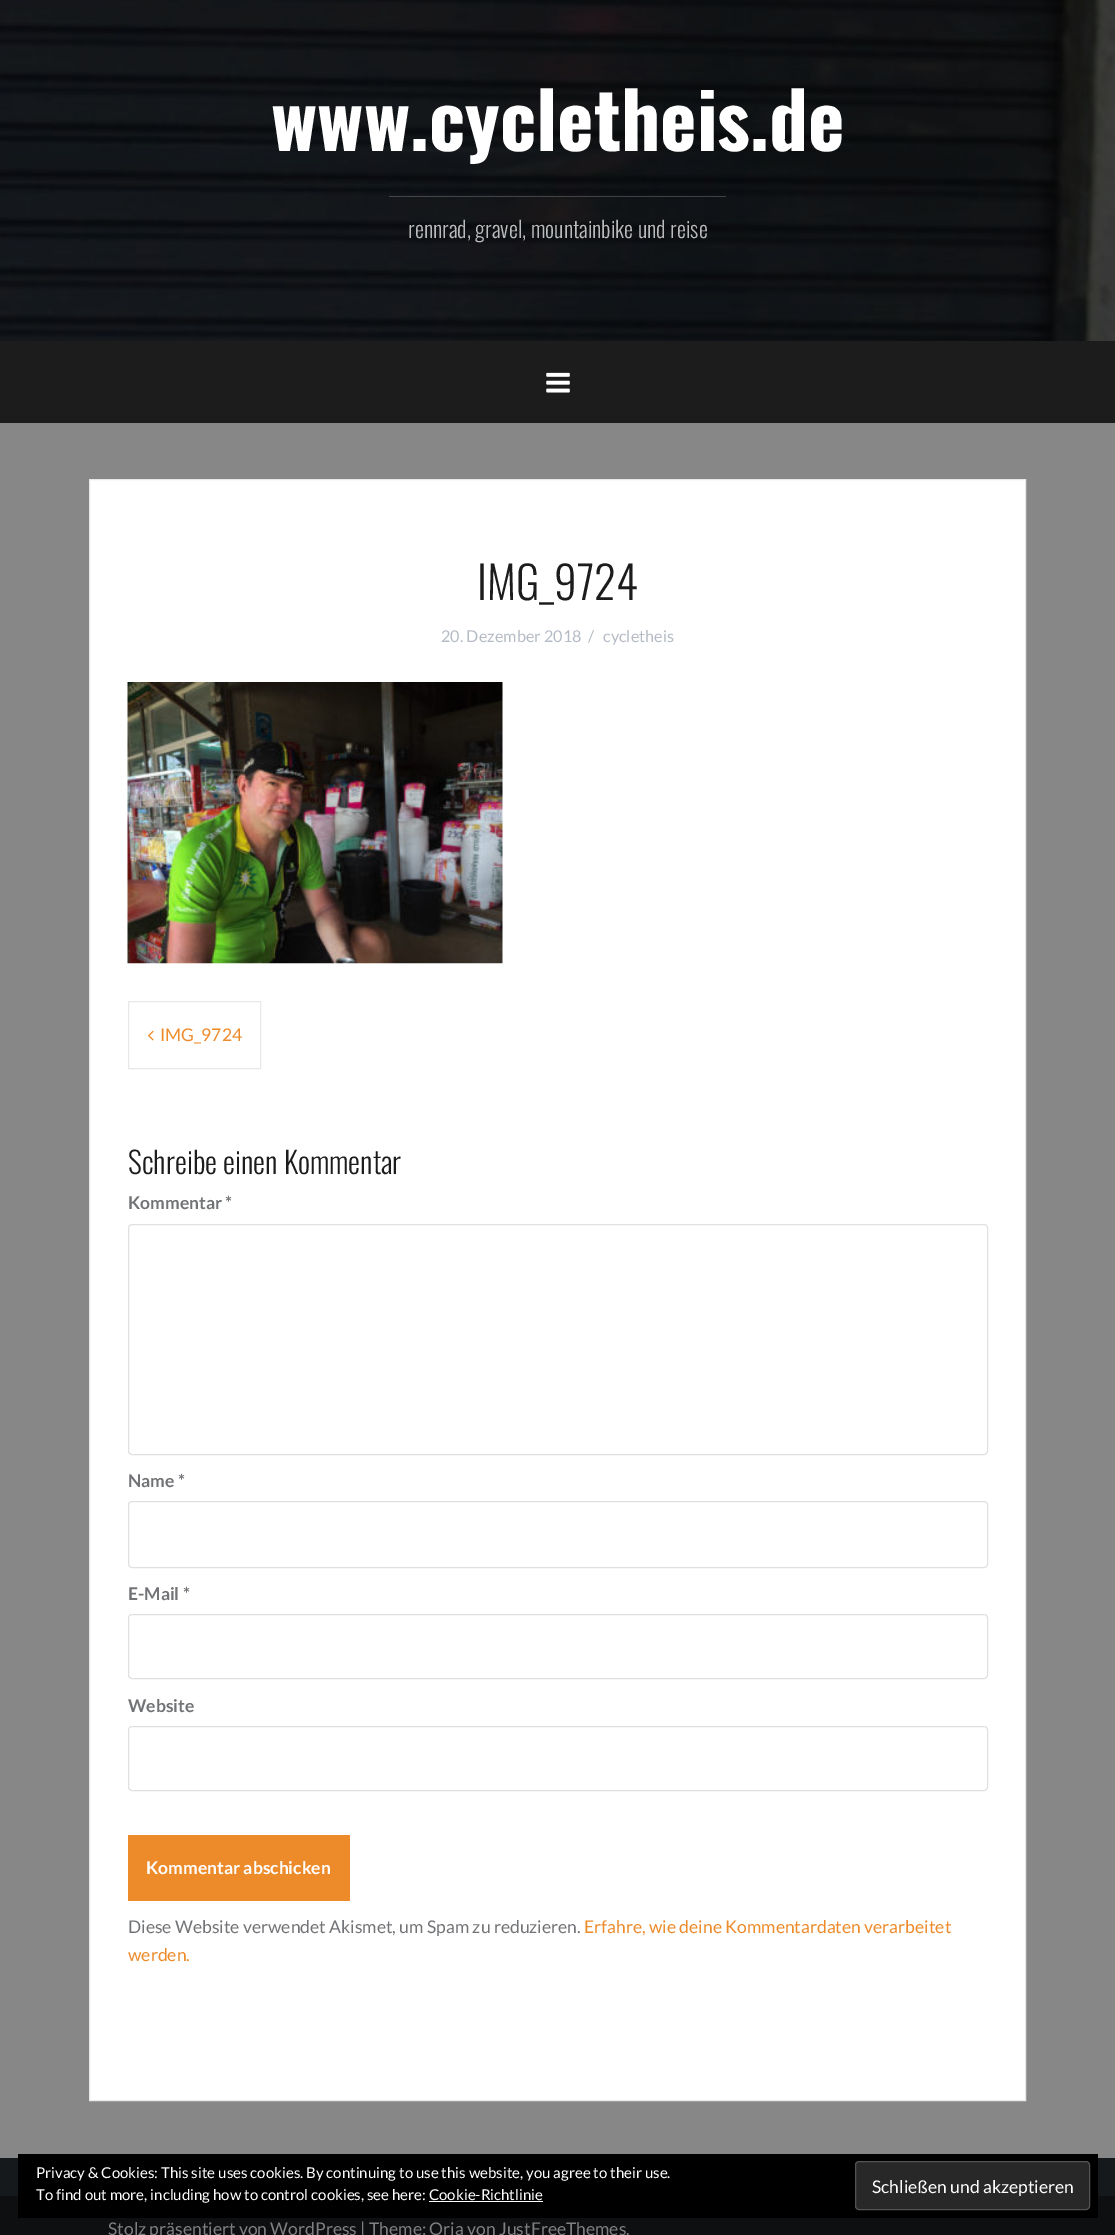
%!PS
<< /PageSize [1115 2235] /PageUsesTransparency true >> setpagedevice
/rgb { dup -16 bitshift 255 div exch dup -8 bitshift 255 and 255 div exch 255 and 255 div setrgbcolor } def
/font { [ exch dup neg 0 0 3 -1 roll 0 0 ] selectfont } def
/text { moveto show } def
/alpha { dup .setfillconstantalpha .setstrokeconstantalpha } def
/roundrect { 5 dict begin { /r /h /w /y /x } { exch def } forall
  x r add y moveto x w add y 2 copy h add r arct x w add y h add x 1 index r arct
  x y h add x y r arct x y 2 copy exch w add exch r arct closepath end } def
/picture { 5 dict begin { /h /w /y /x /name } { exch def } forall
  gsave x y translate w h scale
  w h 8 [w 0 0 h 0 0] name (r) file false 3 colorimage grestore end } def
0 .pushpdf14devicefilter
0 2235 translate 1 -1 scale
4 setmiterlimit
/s1 { /Oswald-Bold 77.5 font 16#FFFFFF rgb } def
/s2 { /Oswald-Light 22.5 font 16#BBBBBB rgb } def
/s3 { /Oswald-Light 45 font 16#1C1C1C rgb } def
/s4 { /Lato-Regular 16.25 font 16#B5BBC5 rgb } def
/s5 { /Lato-Regular 17.5 font 16#ED8B2A rgb } def
/s6 { /Oswald-Light 30 font 16#1C1C1C rgb } def
/s7 { /Lato-Bold 17.5 font 16#717376 rgb } def
/s8 { /Lato-Bold 17.5 font 16#FFFFFF rgb } def
/s9 { /Lato-Regular 17.5 font 16#717376 rgb } def
/s10 { /Lato-Regular 17.5 font 16#808080 rgb } def
/s11 { /Lato-Regular 15 font 16#FFFFFF rgb } def
/s12 { /Lato-Regular 17.5 font 16#FFFFFF rgb } def
16#878787 rgb
0 0 1115 2235 rectfill
(pic1.raw) 0 0 1115 341 picture
s1
(www.cycletheis.de) 271 151 text
0.2 alpha
389 196 337 1 rectfill
1 alpha
s2
(rennrad, gravel, mountainbike und reise) 408 238 text
16#1C1C1C rgb
0 341 1115 82 rectfill
(pic2.raw) 546 372 24 21 picture
16#FFFFFF rgb
89.5 479.5 moveto 1025.5 479.5 lineto 1025.5 2100.5 lineto 89.5 2100.5 lineto closepath gsave fill grestore
16#E8E8E8 rgb
stroke
s3
(IMG_9724) 477 600 text
s4
(20. Dezember 2018) 441 642 text
(/) 588 642 text
(cycletheis) 603 642 text
(pic3.raw) 127 682 376 282 picture
16#E8E8E8 rgb
128.5 1001.5 132 67 rectstroke
(pic4.raw) 148 1030 6 11 picture
s5
(IMG_9724) 160 1041 text
s6
(Schreibe einen Kommentar) 128 1174 text
s7
(Kommentar *) 128 1209 text
16#E0E0E0 rgb
128.5 1224.5 859 230 3.5 roundrect stroke
s7
(Name *) 128 1487 text
16#E0E0E0 rgb
128.5 1501.5 859 66 3.5 roundrect stroke
s7
(E-Mail *) 128 1600 text
16#E0E0E0 rgb
128.5 1614.5 859 64 3.5 roundrect stroke
s7
(Website) 128 1712 text
16#E0E0E0 rgb
128.5 1726.5 859 64 3.5 roundrect stroke
16#ED8B2A rgb
128 1835 222 66 rectfill
s8
(Kommentar abschicken) 146 1874 text
s9
(Diese Website verwendet Akismet, um Spam zu reduzieren.) 128 1933 text
s5
(Erfahre, wie deine Kommentardaten verarbeitet) 584 1933 text
(werden.) 128 1961 text
16#15191B rgb
0 2158 1115 38 rectfill
16#0D0F10 rgb
0 2196 1115 39 rectfill
s10
(Stolz präsentiert von WordPress | Theme: Oria von JustFreeThemes.) 108 2235 text
16#000000 rgb
18 2154 1080 64 rectfill
s11
(Privacy & Cookies: This site uses cookies. By continuing to use this website, you agree to their use.) 36 2178 text
(To find out more, including how to control cookies, see here: Cookie-Richtlinie) 36 2200 text
16#282828 rgb
855.5 2161.5 234 48 3.5 roundrect gsave fill grestore
16#535353 rgb
stroke
s12
(Schließen und akzeptieren) 872 2193 text
429 2201 114 1 rectfill
.poppdf14devicefilter showpage
